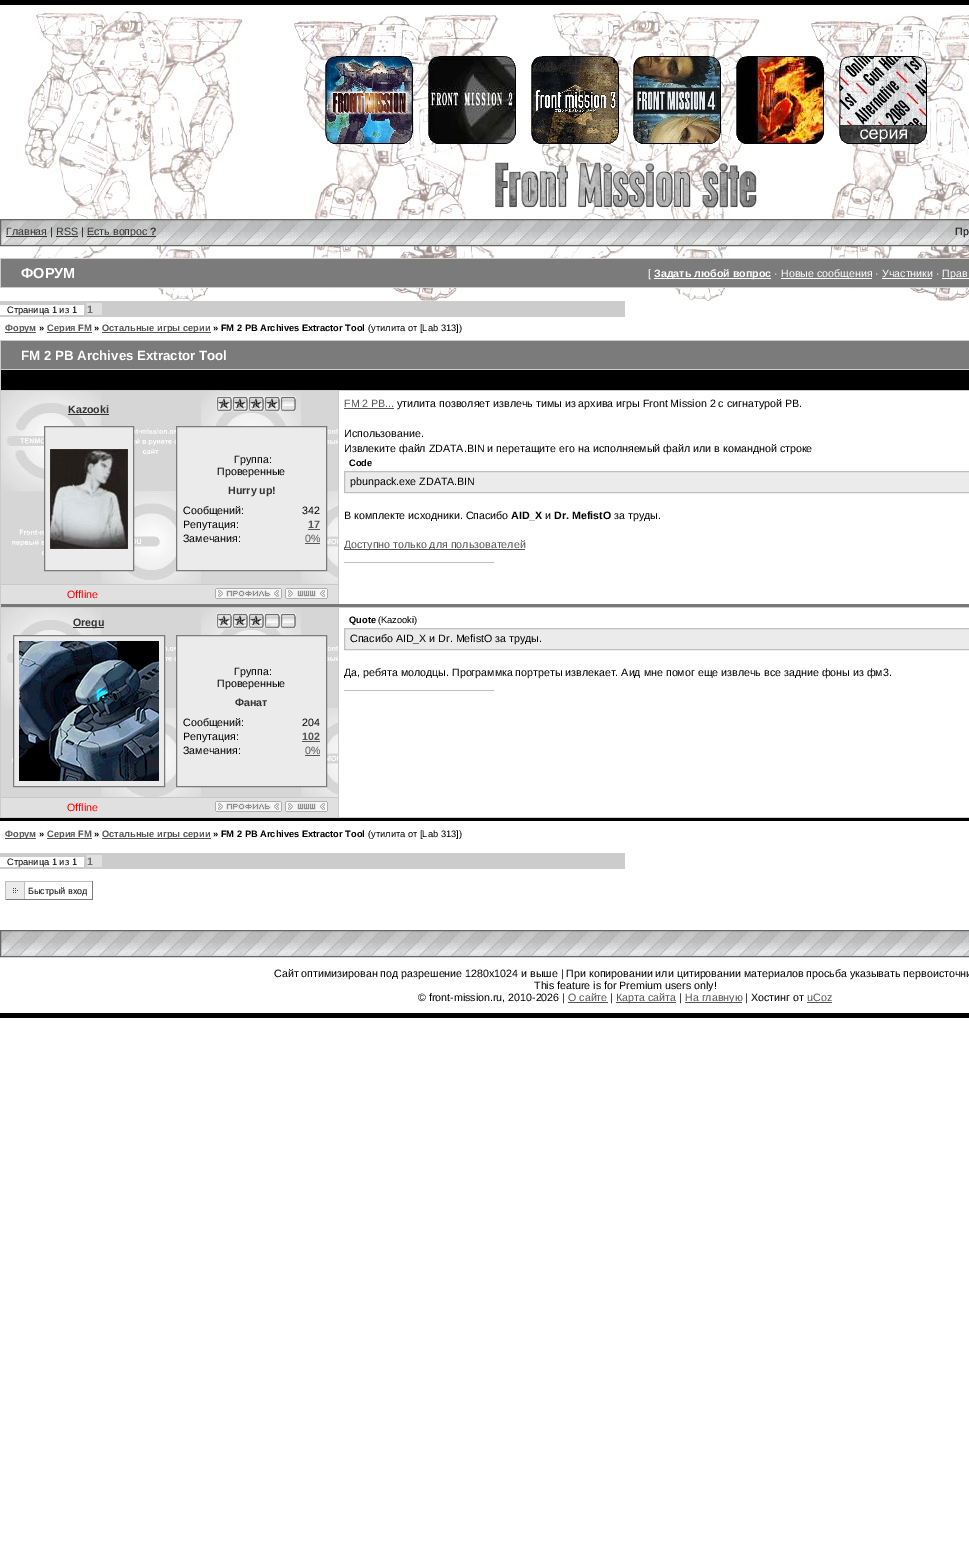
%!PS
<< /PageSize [969 1553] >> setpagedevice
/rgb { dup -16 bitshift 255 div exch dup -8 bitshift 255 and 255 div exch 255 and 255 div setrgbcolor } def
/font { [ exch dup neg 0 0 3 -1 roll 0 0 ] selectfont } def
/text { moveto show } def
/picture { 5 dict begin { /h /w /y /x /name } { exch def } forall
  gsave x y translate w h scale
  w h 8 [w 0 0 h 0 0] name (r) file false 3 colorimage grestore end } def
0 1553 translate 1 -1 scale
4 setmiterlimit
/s1 { /LiberationSans-Regular 10.67 font 16#333333 rgb } def
/s2 { /LiberationSans-Regular 10.67 font 16#000000 rgb } def
/s3 { /LiberationSans-Bold 10.67 font 16#333333 rgb } def
/s4 { /LiberationSans-Bold 14.5 font 16#FFFFFF rgb } def
/s5 { /LiberationSans-Regular 10.67 font 16#FFFFFF rgb } def
/s6 { /LiberationSans-Bold 10.67 font 16#FFFFFF rgb } def
/s7 { /LiberationSans-Regular 9.3 font 16#000000 rgb } def
/s8 { /LiberationSans-Bold 10.67 font 16#6E6E6E rgb } def
/s9 { /LiberationSans-Bold 9.3 font 16#555555 rgb } def
/s10 { /LiberationSans-Bold 9.3 font 16#000000 rgb } def
/s11 { /LiberationSans-Bold 13.3 font 16#FFFFFF rgb } def
/s12 { /LiberationSans-Regular 10.67 font 16#555555 rgb } def
/s13 { /LiberationSans-Bold 10.67 font 16#000000 rgb } def
/s14 { /LiberationSans-Bold 10.67 font 16#555555 rgb } def
/s15 { /LiberationSans-Regular 10.67 font 16#FF0000 rgb } def
/s16 { /LiberationSans-Regular 9 font 16#000000 rgb } def
16#FFFFFF rgb
0 0 969 1553 rectfill
(pic1.raw) 24 11 945 290 picture
16#000000 rgb
0 0 969 5 rectfill
(pic2.raw) 325 56 88 88 picture
(pic3.raw) 428 56 88 88 picture
(pic4.raw) 531 56 88 88 picture
(pic5.raw) 633 56 88 88 picture
(pic6.raw) 736 56 88 88 picture
(pic7.raw) 839 56 88 88 picture
(pic8.raw) 495 162 262 46 picture
(pic9.raw) 1 220 968 25 picture
16#666666 rgb
0.5 219.5 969 26 rectstroke
s1
(Главная) 6 235 text
6 236 41 1 rectfill
s2
(|) 50 235 text
s1
(RSS) 56 235 text
56 236 22 1 rectfill
s2
(|) 81 235 text
16#333333 rgb
87 236 69 1 rectfill
(Есть вопрос) 87 235 text
s3
(?) 150 235 text
s2
(Пр) 955 235 text
16#7B7B7B rgb
1 259 968 28 rectfill
16#CCCCCC rgb
0 258 969 1 rectfill
0 287 969 1 rectfill
0 258 1 30 rectfill
s4
(ФОРУМ) 21 278 text
s5
([) 648 277 text
654 278 117 1 rectfill
s6
(Задать любой вопрос) 654 277 text
s5
(·) 774 277 text
781 278 91 1 rectfill
(Новые сообщения · Участники ·) 781 277 text
882 278 50 1 rectfill
942 278 27 1 rectfill
(Прав) 942 277 text
16#CCCCCC rgb
0 301 625 16 rectfill
16#FFFFFF rgb
0 305 84 10 rectfill
s7
(Страница 1 из 1) 7 313 text
16#E0E0E0 rgb
87 303 15 12 rectfill
s8
(1) 87 313 text
16#555555 rgb
5 332 31 1 rectfill
s9
(Форум) 5 331 text
s10
(») 39 331 text
16#555555 rgb
47 332 45 1 rectfill
(Серия FM) 47 331 text
s10
(») 94 331 text
16#555555 rgb
102 332 109 1 rectfill
(Остальные игры серии) 102 331 text
s10
(» FM 2 PB Archives Extractor Tool) 213 331 text
s7
(\(утилита от [Lab 313]\)) 368 331 text
16#CCCCCC rgb
0 340 969 478 rectfill
16#7B7B7B rgb
1 341 968 28 rectfill
s11
(FM 2 PB Archives Extractor Tool) 21 360 text
16#000000 rgb
1 370 968 20 rectfill
16#787878 rgb
1 604 968 3 rectfill
(pic10.raw) 1 391 337 193 picture
s3
(Kazooki) 68 413 text
68 414 41 1 rectfill
(pic11.raw) 216 396 80 16 picture
16#FFFFFF rgb
339 391 630 213 rectfill
16#C9C9C9 rgb
338 391 1 213 rectfill
s12
(FM 2 PB...) 344 407 text
344 408 50 1 rectfill
s2
(утилита позволяет извлечь тимы из архива игры Front Mission 2 с сигнатурой PB.) 397 407 text
(Использование.) 344 437 text
(Извлеките файл ZDATA.BIN и перетащите его на исполняемый файл или в командной строке) 344 452 text
s10
(Code) 349 466 text
16#EBEBEB rgb
344.5 471.5 moveto 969.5 471.5 lineto 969.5 492.5 lineto 344.5 492.5 lineto closepath gsave fill grestore
16#C0C0C0 rgb
stroke
s2
(pbunpack.exe ZDATA.BIN) 350 485 text
(В комплекте исходники. Спасибо) 344 519 text
s13
(AID_X) 511 519 text
s2
(и) 545 519 text
s13
(Dr. MefistO) 554 519 text
s2
(за труды.) 614 519 text
16#555555 rgb
344 549 181 1 rectfill
(Доступно только для пользователей) 344 548 text
16#C0C0C0 rgb
344 562 150 1 rectfill
16#EBEBEB rgb
44.5 426.5 moveto 133.5 426.5 lineto 133.5 570.5 lineto 44.5 570.5 lineto closepath gsave fill grestore
16#7B7B7B rgb
stroke
(pic12.raw) 50 449 78 100 picture
16#EBEBEB rgb
176.5 426.5 moveto 326.5 426.5 lineto 326.5 570.5 lineto 176.5 570.5 lineto closepath gsave fill grestore
16#7B7B7B rgb
stroke
s2
(Группа:) 234 463 text
(Проверенные) 217 475 text
s3
(Hurry up!) 228 494 text
s2
(Сообщений:) 183 514 text
(342) 302 514 text
(Репутация:) 183 528 text
s14
(17) 308 528 text
308 529 12 1 rectfill
s2
(Замечания:) 183 542 text
s12
(0%) 305 542 text
305 543 15 1 rectfill
16#E0E0E0 rgb
1 585 337 19 rectfill
16#C9C9C9 rgb
1 584 337 1 rectfill
s15
(Offline) 67 598 text
(pic13.raw) 215 588 67 11 picture
(pic14.raw) 285 588 43 11 picture
(pic15.raw) 1 608 337 189 picture
16#333333 rgb
73 627 31 1 rectfill
s3
(Oregu) 73 626 text
(pic16.raw) 216 613 80 16 picture
16#FFFFFF rgb
339 608 630 209 rectfill
16#C9C9C9 rgb
338 608 1 209 rectfill
s10
(Quote) 349 623 text
s7
(\(Kazooki\)) 378 623 text
16#EBEBEB rgb
344.5 628.5 moveto 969.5 628.5 lineto 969.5 649.5 lineto 344.5 649.5 lineto closepath gsave fill grestore
16#C0C0C0 rgb
stroke
s2
(Спасибо AID_X и Dr. MefistO за труды.) 350 642 text
(Да, ребята молодцы. Программка портреты извлекает. Аид мне помог еще извлечь все задние фоны из фм3.) 344 676 text
16#C0C0C0 rgb
344 690 150 1 rectfill
16#EBEBEB rgb
13.5 635.5 moveto 164.5 635.5 lineto 164.5 786.5 lineto 13.5 786.5 lineto closepath gsave fill grestore
16#7B7B7B rgb
stroke
(pic17.raw) 19 641 140 140 picture
16#EBEBEB rgb
176.5 635.5 moveto 326.5 635.5 lineto 326.5 786.5 lineto 176.5 786.5 lineto closepath gsave fill grestore
16#7B7B7B rgb
stroke
s2
(Группа:) 234 675 text
(Проверенные) 217 687 text
s3
(Фанат) 235 706 text
s2
(Сообщений:) 183 726 text
(204) 302 726 text
(Репутация:) 183 740 text
s14
(102) 302 740 text
302 741 18 1 rectfill
s2
(Замечания:) 183 754 text
s12
(0%) 305 754 text
305 755 15 1 rectfill
16#E0E0E0 rgb
1 798 337 19 rectfill
16#C9C9C9 rgb
1 797 337 1 rectfill
s15
(Offline) 67 811 text
(pic13.raw) 215 801 67 11 picture
(pic14.raw) 285 801 43 11 picture
16#000000 rgb
0 818 969 3 rectfill
16#555555 rgb
5 838 31 1 rectfill
s9
(Форум) 5 837 text
s10
(») 39 837 text
16#555555 rgb
47 838 45 1 rectfill
(Серия FM) 47 837 text
s10
(») 94 837 text
16#555555 rgb
102 838 109 1 rectfill
(Остальные игры серии) 102 837 text
s10
(» FM 2 PB Archives Extractor Tool) 213 837 text
s7
(\(утилита от [Lab 313]\)) 368 837 text
16#CCCCCC rgb
0 853 625 16 rectfill
16#FFFFFF rgb
0 857 84 10 rectfill
s7
(Страница 1 из 1) 7 865 text
16#E0E0E0 rgb
87 855 15 12 rectfill
s8
(1) 87 865 text
(pic18.raw) 6 882 19 17 picture
16#C0C0C0 rgb
5 881 88 1 rectfill
16#7B7B7B rgb
92 881 1 19 rectfill
5 899 88 1 rectfill
16#C0C0C0 rgb
5 881 1 19 rectfill
s16
(Быстрый вход) 28 894 text
(pic9.raw) 1 931 968 25 picture
16#666666 rgb
0.5 930.5 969 26 rectstroke
16#000000 rgb
0 1013 969 5 rectfill
s2
(Сайт оптимизирован под разрешение 1280x1024 и выше | При копировании или цитировании материалов просьба указывать первоисточни) 274 977 text
(This feature is for Premium users only!) 534 989 text
(© front-mission.ru, 2010-2026 |) 418 1001 text
s12
(О сайте) 568 1001 text
568 1002 40 1 rectfill
s2
(|) 610 1001 text
16#555555 rgb
616 1002 60 1 rectfill
(Карта сайта) 616 1001 text
s2
(|) 679 1001 text
16#555555 rgb
685 1002 57 1 rectfill
(На главную) 685 1001 text
s2
(| Хостинг от) 745 1001 text
s12
(uCoz) 807 1001 text
807 1002 25 1 rectfill
showpage
